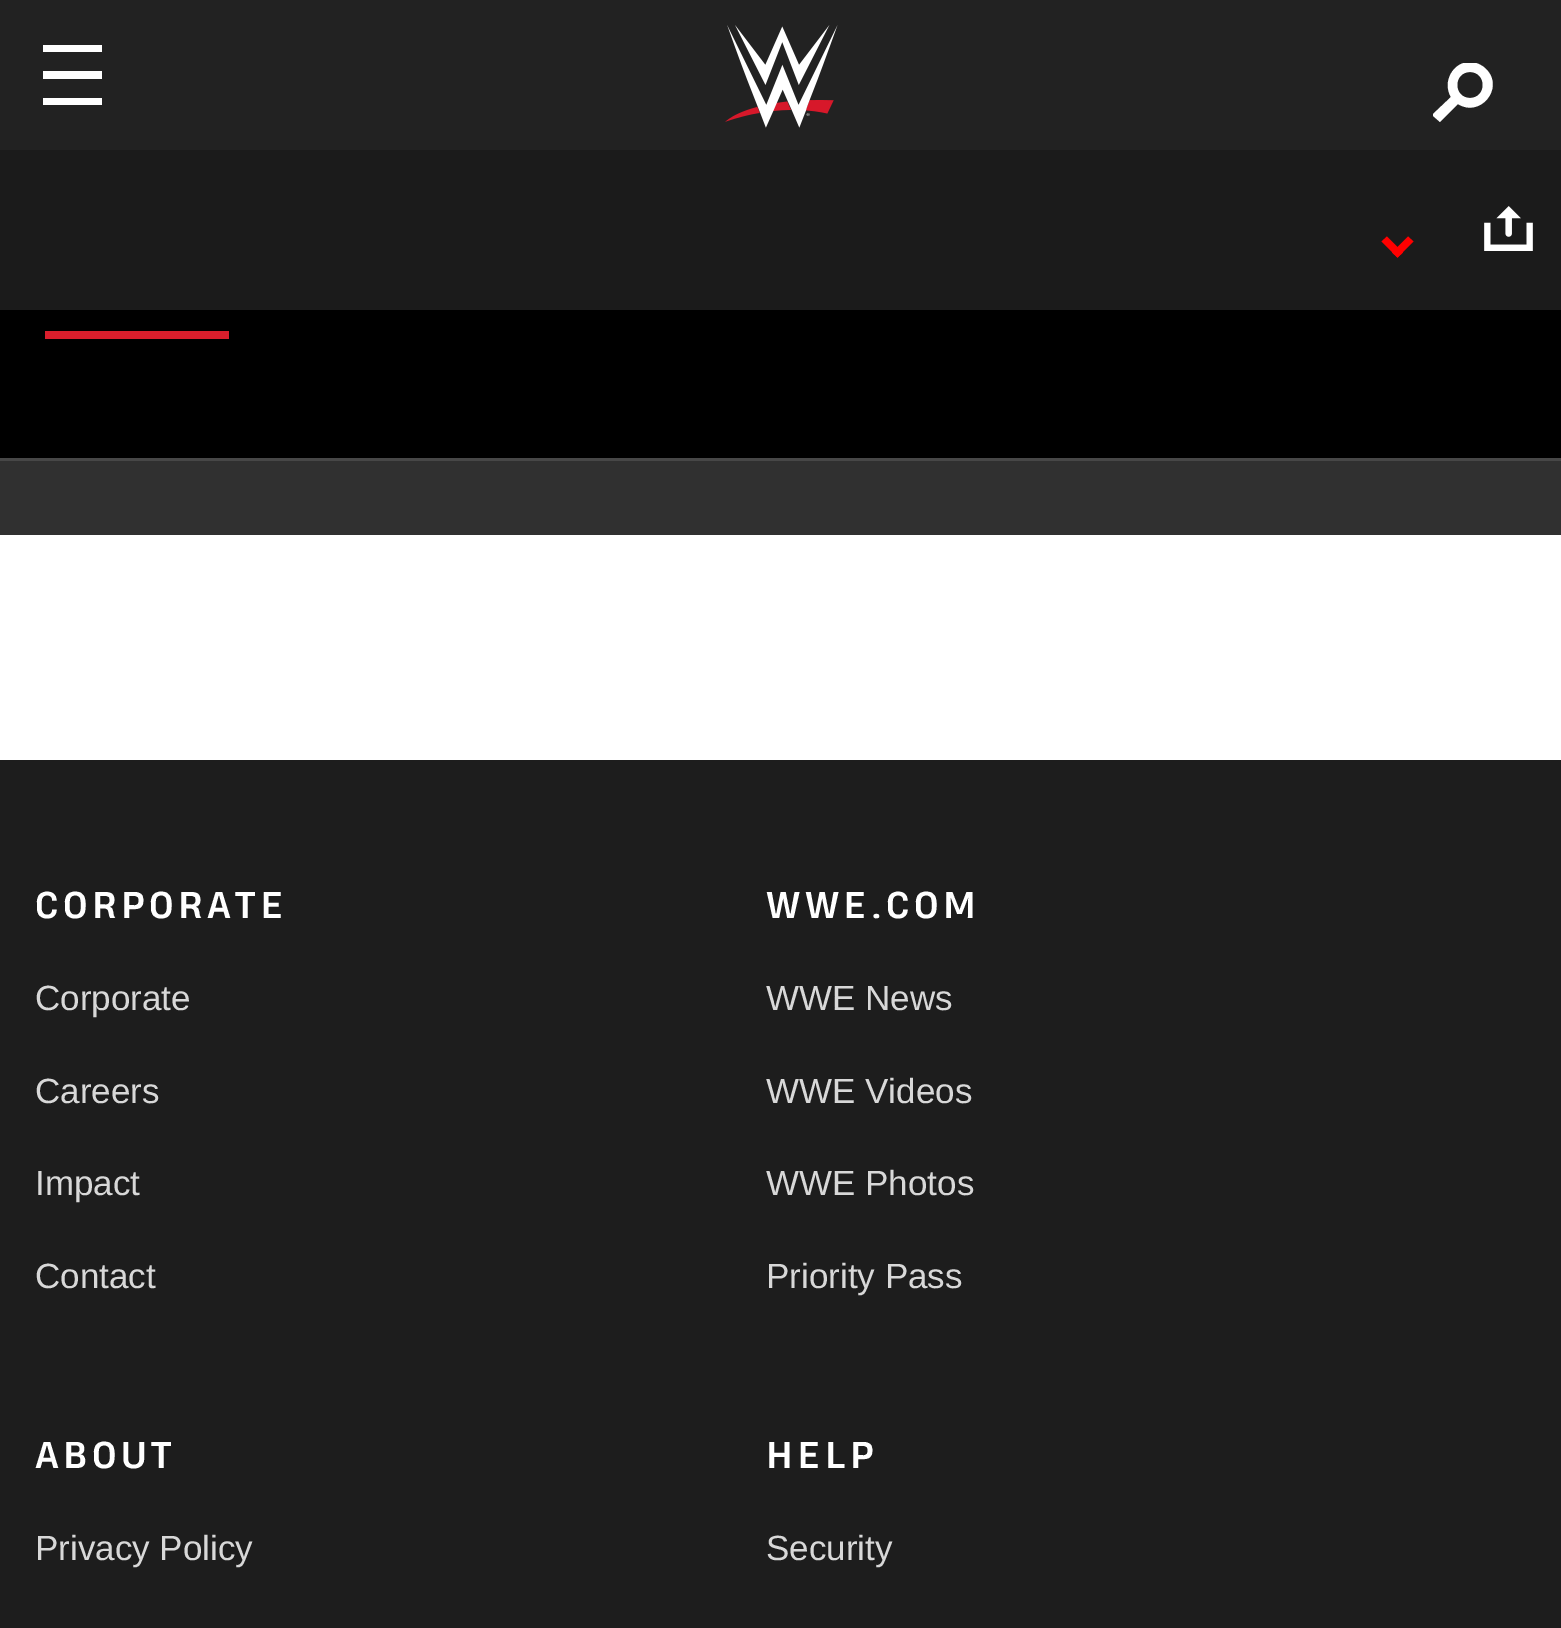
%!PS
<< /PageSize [1561 1628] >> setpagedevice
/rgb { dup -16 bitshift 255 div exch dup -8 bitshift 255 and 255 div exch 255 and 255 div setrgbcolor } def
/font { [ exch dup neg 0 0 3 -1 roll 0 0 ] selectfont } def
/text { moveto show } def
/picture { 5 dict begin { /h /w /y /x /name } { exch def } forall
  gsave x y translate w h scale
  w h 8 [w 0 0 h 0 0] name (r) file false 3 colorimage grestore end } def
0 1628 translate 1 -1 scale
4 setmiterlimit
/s1 { /LiberationSans-Regular 35 font 16#D8D8D8 rgb } def
16#FFFFFF rgb
0 0 1561 1628 rectfill
16#222222 rgb
0 0 1561 150 rectfill
gsave
43 45 60 60 rectclip
16#FFFFFF rgb
46 52 moveto 42 52 lineto 42 45 lineto 102 45 lineto 102 52 lineto closepath 46 79 moveto 42 79 lineto 42 71 lineto 102 71 lineto 102 79 lineto closepath 46 105 moveto 42 105 lineto 42 98 lineto 102 98 lineto 102 105 lineto closepath eofill
grestore
(pic1.raw) 725 25 113 103 picture
gsave
1433 63 60 60 rectclip
16#FFFFFF rgb
1470 62 moveto 1476 62 1482 65 1486 69 curveto 1505 88 1480 118 1458 104 curveto 1440 122 lineto 1432 115 lineto 1451 97 lineto 1442 82 1453 62 1470 62 curveto closepath 1470 72 moveto 1453 72 1453 98 1470 98 curveto 1487 98 1487 72 1470 72 curveto closepath eofill
grestore
16#303030 rgb
0 461 1561 74 rectfill
16#1B1B1B rgb
0 150 1561 160 rectfill
16#FF0000 rgb
1408 236.5 moveto 1413.5 241.5 lineto 1397.5 257.5 lineto 1392 252.5 lineto closepath fill
1387 236.5 moveto 1403 252.5 lineto 1397.5 257.5 lineto 1381.5 241.5 lineto closepath fill
(pic2.raw) 1484 206 49 45 picture
16#000000 rgb
0 310 1561 148 rectfill
16#474747 rgb
0 458 1561 3 rectfill
16#D91E2C rgb
45 331 184 8 rectfill
16#1D1D1D rgb
0 760 1561 868 rectfill
/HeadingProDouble-Bold 35 font
16#FFFFFF rgb
35 918 moveto 4.4 0 (CORPORATE) ashow
s1
(Corporate) 35 1010 text
(Careers) 35 1103 text
(Impact) 35 1195 text
(Contact) 35 1288 text
/HeadingProDouble-Bold 35 font
16#FFFFFF rgb
766 918 moveto 4.4 0 (WWE.COM) ashow
s1
(WWE News) 766 1010 text
(WWE Videos) 766 1103 text
(WWE Photos) 766 1195 text
(Priority Pass) 766 1288 text
/HeadingProDouble-Bold 35 font
16#FFFFFF rgb
35 1468 moveto 4.4 0 (ABOUT) ashow
s1
(Privacy Policy) 35 1560 text
/HeadingProDouble-Bold 35 font
16#FFFFFF rgb
766 1468 moveto 4.4 0 (HELP) ashow
s1
(Security) 766 1560 text
showpage
